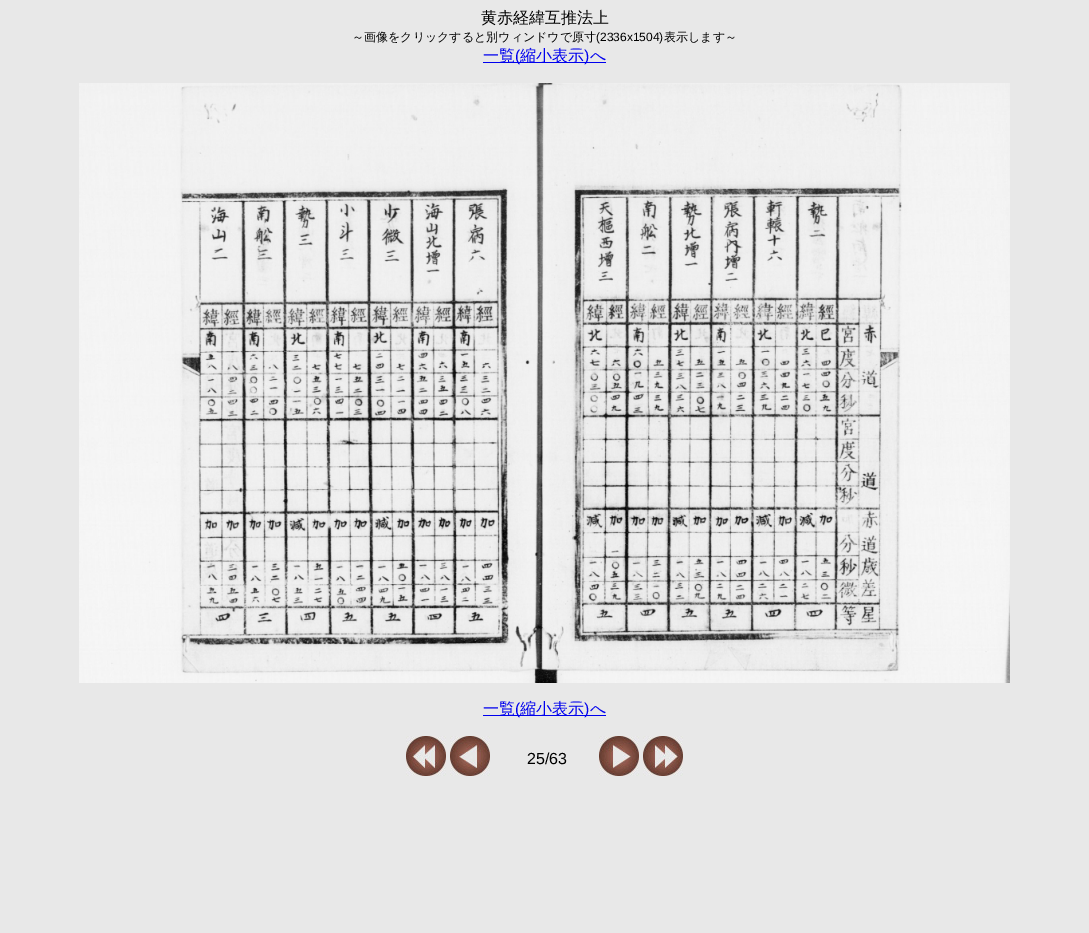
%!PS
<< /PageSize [1089 933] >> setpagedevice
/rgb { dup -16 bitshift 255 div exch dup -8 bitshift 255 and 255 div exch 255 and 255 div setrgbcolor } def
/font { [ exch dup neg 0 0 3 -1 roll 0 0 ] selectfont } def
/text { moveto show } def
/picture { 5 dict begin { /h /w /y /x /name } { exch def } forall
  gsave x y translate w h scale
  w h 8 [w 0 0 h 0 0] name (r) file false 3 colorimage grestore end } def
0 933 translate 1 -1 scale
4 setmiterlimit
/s1 { /WenQuanYiZenHei-Medium 16 font 16#000000 rgb } def
/s2 { /WenQuanYiZenHei-Medium 12 font 16#000000 rgb } def
/s3 { /LiberationSans-Regular 12 font 16#000000 rgb } def
/s4 { /WenQuanYiZenHei-Medium 16 font 16#0000EE rgb } def
/s5 { /LiberationSans-Regular 16 font 16#0000EE rgb } def
/s6 { /LiberationSans-Regular 16 font 16#000000 rgb } def
16#E8E8E8 rgb
0 0 1089 933 rectfill
s1
(黄赤経緯互推法上) 481 23 text
s2
(～画像をクリックすると別ウィンドウで原寸) 352 41 text
s3
(\(2336x1504\)) 596 41 text
s2
(表示します～) 664 41 text
16#0000EE rgb
483 62 123 1 rectfill
s4
(一覧) 483 61 text
s5
(\() 515 61 text
s4
(縮小表示) 520 61 text
s5
(\)) 584 61 text
s4
(へ) 590 61 text
(pic1.raw) 79 83 931 600 picture
483 715 123 1 rectfill
(一覧) 483 714 text
s5
(\() 515 714 text
s4
(縮小表示) 520 714 text
s5
(\)) 584 714 text
s4
(へ) 590 714 text
(pic2.raw) 406 736 40 40 picture
(pic3.raw) 450 736 40 40 picture
s6
(25/63) 527 764 text
(pic4.raw) 599 736 40 40 picture
(pic5.raw) 643 736 40 40 picture
showpage
